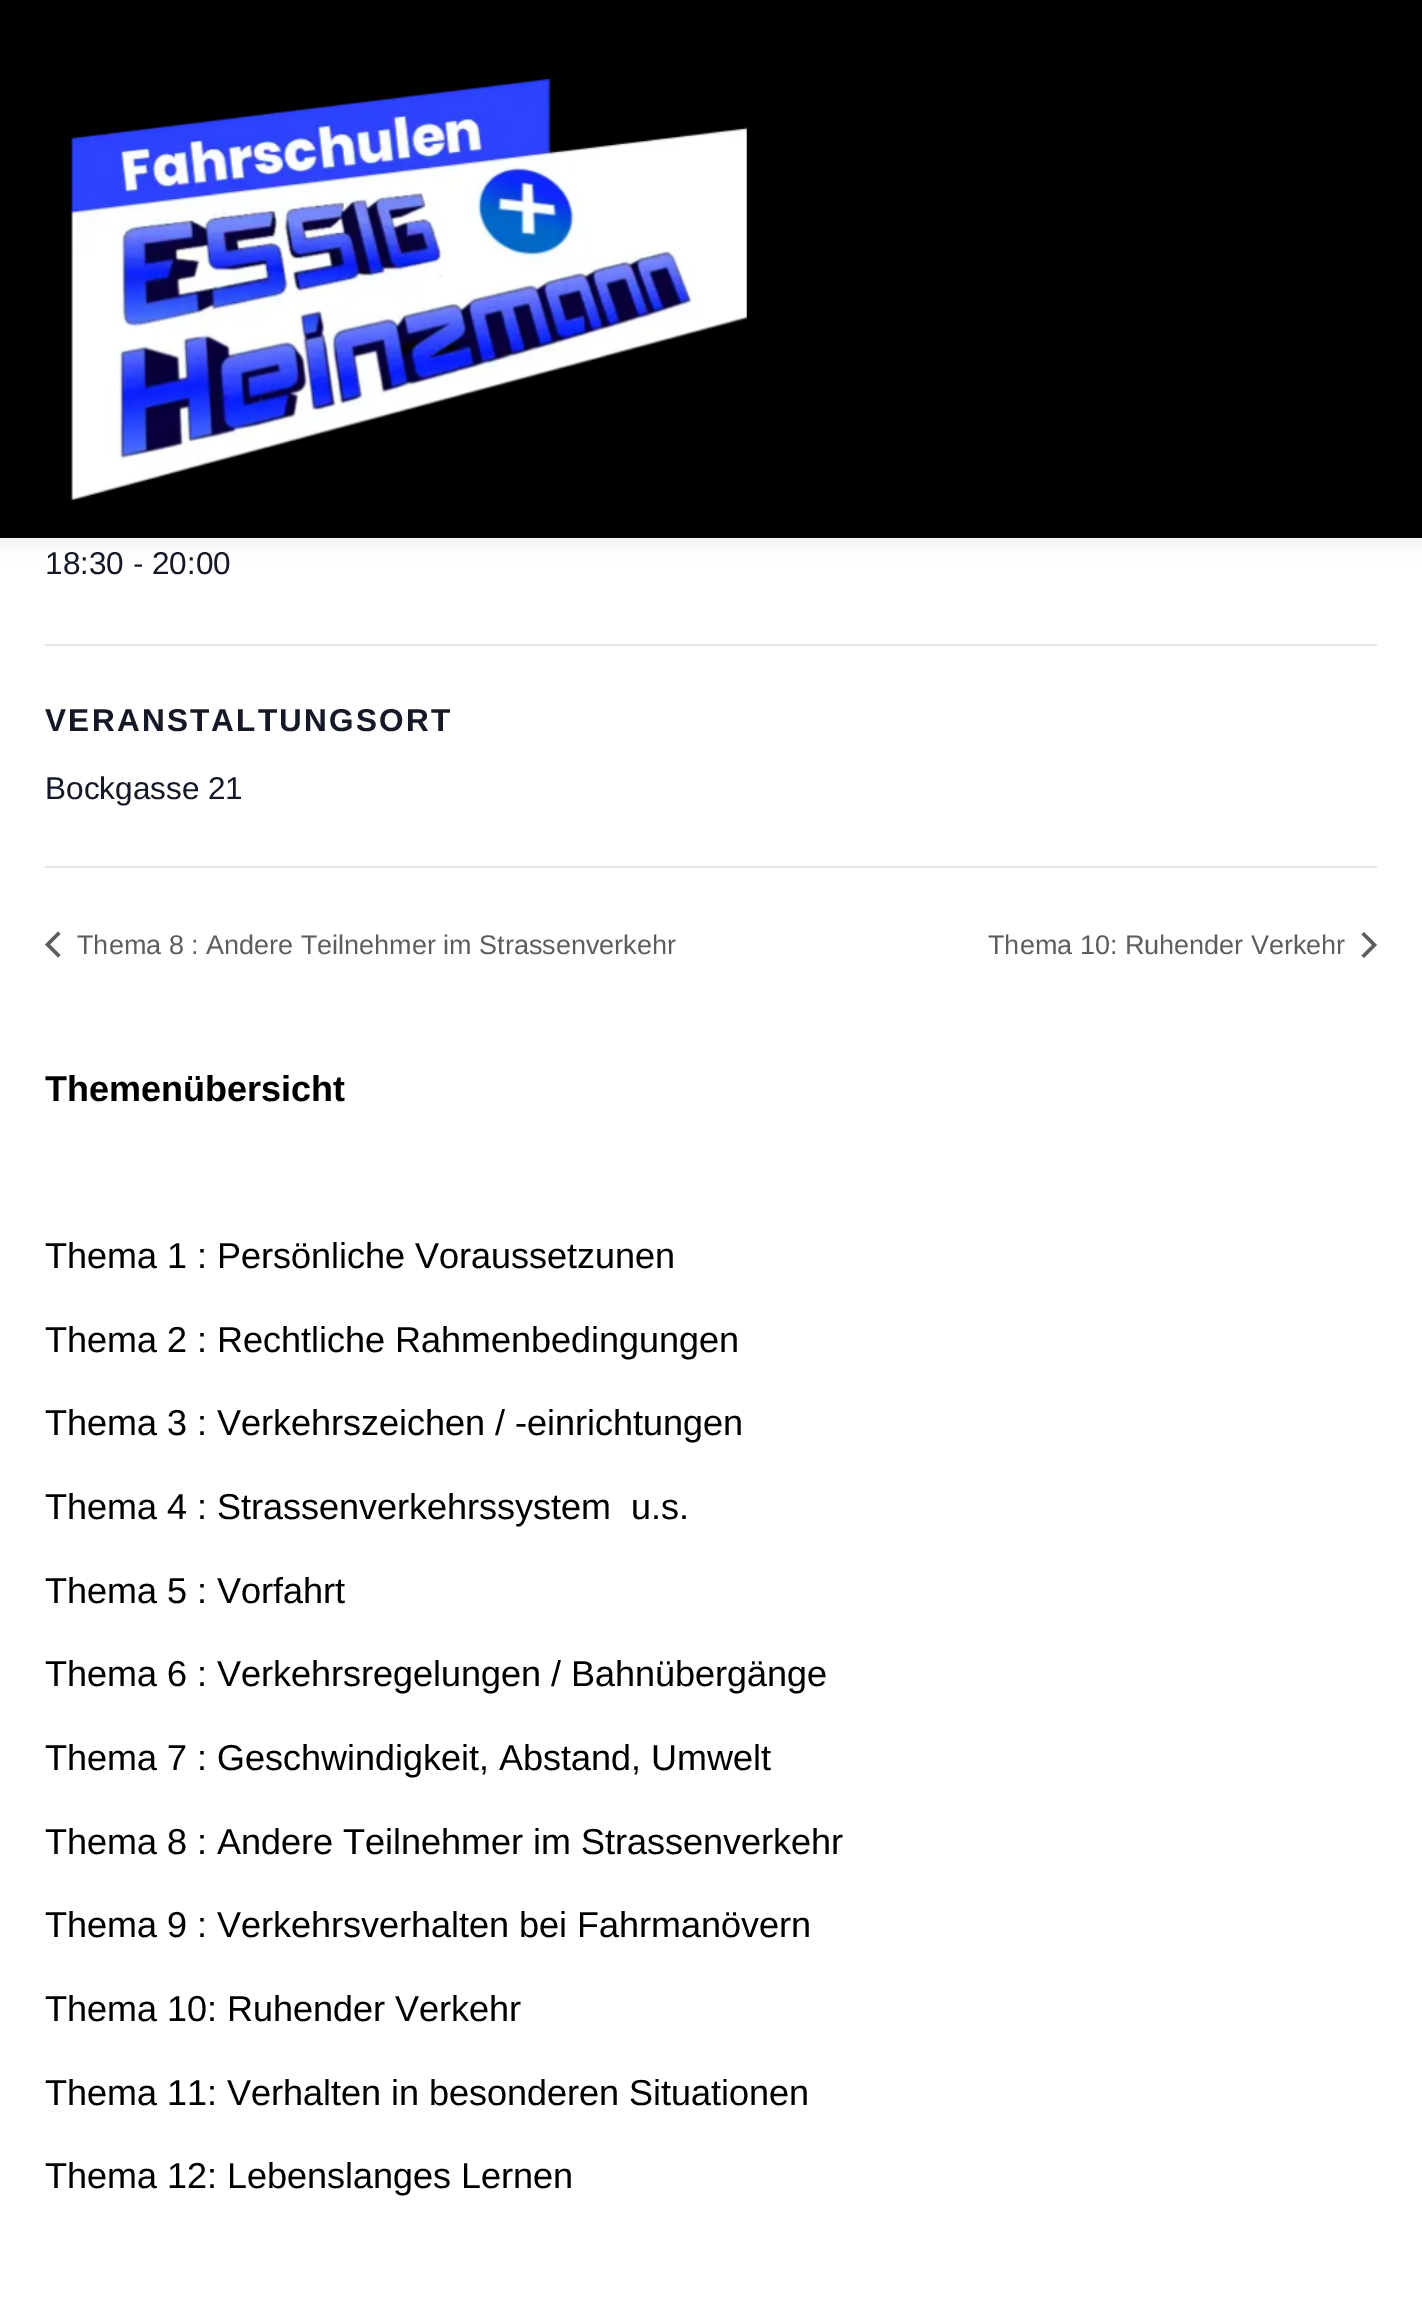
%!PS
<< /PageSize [1422 2309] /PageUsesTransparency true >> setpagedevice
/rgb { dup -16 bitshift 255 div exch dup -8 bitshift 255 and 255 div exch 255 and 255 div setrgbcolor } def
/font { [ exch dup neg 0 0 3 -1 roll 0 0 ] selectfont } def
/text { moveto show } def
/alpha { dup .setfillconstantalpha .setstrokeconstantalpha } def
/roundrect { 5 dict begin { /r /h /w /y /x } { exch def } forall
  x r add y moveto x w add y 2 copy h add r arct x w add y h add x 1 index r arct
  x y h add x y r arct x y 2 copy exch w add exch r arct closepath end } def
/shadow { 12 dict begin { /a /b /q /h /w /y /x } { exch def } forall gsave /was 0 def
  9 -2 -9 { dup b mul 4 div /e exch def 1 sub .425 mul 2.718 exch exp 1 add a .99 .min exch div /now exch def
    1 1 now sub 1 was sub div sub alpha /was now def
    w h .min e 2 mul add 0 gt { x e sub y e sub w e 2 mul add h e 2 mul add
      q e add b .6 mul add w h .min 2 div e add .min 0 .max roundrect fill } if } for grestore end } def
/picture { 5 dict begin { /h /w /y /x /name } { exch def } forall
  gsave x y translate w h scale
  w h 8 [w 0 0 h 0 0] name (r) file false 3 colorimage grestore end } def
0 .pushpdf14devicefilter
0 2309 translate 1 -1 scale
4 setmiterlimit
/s1 { /LiberationSans-Regular 31.5 font 16#141827 rgb } def
/s2 { /LiberationSans-Regular 27 font 16#5D5D5D rgb } def
/s3 { /LiberationSans-Bold 36 font 16#000000 rgb } def
/s4 { /LiberationSans-Regular 36 font 16#000000 rgb } def
16#FFFFFF rgb
0 0 1422 2309 rectfill
16#000000 rgb
-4 0 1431 547 0 9 0.06 shadow
0 0 1422 538 rectfill
(pic1.raw) 71 79 676 421 picture
s1
(18:30 - 20:00) 45 574 text
16#E4E4E4 rgb
45 644 1332 2 rectfill
/LiberationSans-Bold 31.5 font
16#141827 rgb
45 731 moveto 2.25 0 (VERANSTALTUNGSORT) ashow
s1
(Bockgasse 21) 45 799 text
16#E4E4E4 rgb
45 866 1332 2 rectfill
16#5D5D5D rgb
60.5 955 moveto 58 957.5 lineto 45 944.5 lineto 58 931.5 lineto 60.5 934 lineto 50 944.5 lineto closepath fill
s2
(Thema 8 : Andere Teilnehmer im Strassenverkehr) 77 954 text
(Thema 10: Ruhender Verkehr) 988 954 text
1361.5 934.5 moveto 1364 932 lineto 1377 945 lineto 1364 958 lineto 1361.5 955.5 lineto 1372 945 lineto closepath fill
s3
(Themenübersicht) 45 1101 text
s4
(Thema 1 : Persönliche Voraussetzunen) 45 1268 text
(Thema 2 : Rechtliche Rahmenbedingungen) 45 1352 text
(Thema 3 : Verkehrszeichen / -einrichtungen) 45 1435 text
(Thema 4 : Strassenverkehrssystem  u.s.) 45 1519 text
(Thema 5 : Vorfahrt) 45 1603 text
(Thema 6 : Verkehrsregelungen / Bahnübergänge) 45 1686 text
(Thema 7 : Geschwindigkeit, Abstand, Umwelt) 45 1770 text
(Thema 8 : Andere Teilnehmer im Strassenverkehr) 45 1854 text
(Thema 9 : Verkehrsverhalten bei Fahrmanövern) 45 1937 text
(Thema 10: Ruhender Verkehr) 45 2021 text
(Thema 11: Verhalten in besonderen Situationen) 45 2105 text
(Thema 12: Lebenslanges Lernen) 45 2188 text
.poppdf14devicefilter showpage
